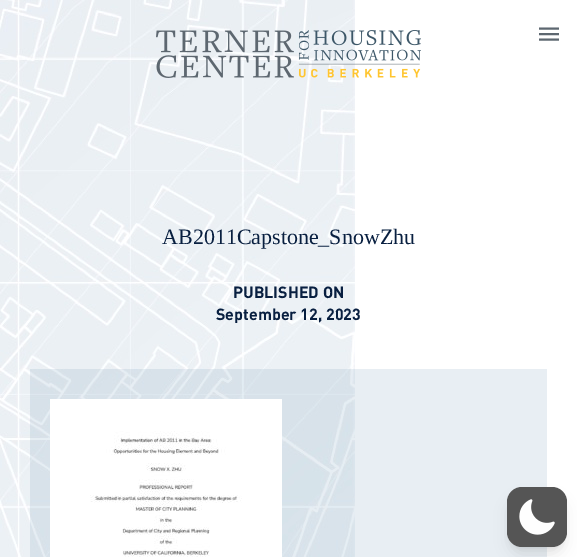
%!PS
<< /PageSize [577 557] /PageUsesTransparency true >> setpagedevice
/rgb { dup -16 bitshift 255 div exch dup -8 bitshift 255 and 255 div exch 255 and 255 div setrgbcolor } def
/font { [ exch dup neg 0 0 3 -1 roll 0 0 ] selectfont } def
/text { moveto show } def
/alpha { dup .setfillconstantalpha .setstrokeconstantalpha } def
/roundrect { 5 dict begin { /r /h /w /y /x } { exch def } forall
  x r add y moveto x w add y 2 copy h add r arct x w add y h add x 1 index r arct
  x y h add x y r arct x y 2 copy exch w add exch r arct closepath end } def
/shadow { 12 dict begin { /a /b /q /h /w /y /x } { exch def } forall gsave /was 0 def
  9 -2 -9 { dup b mul 4 div /e exch def 1 sub .425 mul 2.718 exch exp 1 add a .99 .min exch div /now exch def
    1 1 now sub 1 was sub div sub alpha /was now def
    w h .min e 2 mul add 0 gt { x e sub y e sub w e 2 mul add h e 2 mul add
      q e add b .6 mul add w h .min 2 div e add .min 0 .max roundrect fill } if } for grestore end } def
/picture { 5 dict begin { /h /w /y /x /name } { exch def } forall
  gsave x y translate w h scale
  w h 8 [w 0 0 h 0 0] name (r) file false 3 colorimage grestore end } def
0 .pushpdf14devicefilter
0 557 translate 1 -1 scale
4 setmiterlimit
/s1 { /LiberationSerif-Regular 22 font 16#081F40 rgb } def
/s2 { /DIN-Bold 16 font 16#081F40 rgb } def
16#FFFFFF rgb
0 0 577 557 rectfill
(pic1.raw) 0 0 355 557 picture
(pic2.raw) 156 30 265 48 picture
16#5D6770 rgb
2 setlinewidth
539 28.5 moveto 559 28.5 lineto 539 34 moveto 559 34 lineto 539 39.5 moveto 559 39.5 lineto stroke
s1
(AB2011Capstone_SnowZhu) 162 244 text
s2
(PUBLISHED ON) 233 298 text
(September 12, 2023) 216 320 text
0.14 alpha
16#5D89A7 rgb
30 369 517 188 rectfill
1 alpha
(pic3.raw) 50 399 232 158 picture
16#000000 rgb
511 495 52 52 11 3 0.1 shadow
510 500 54 54 12 7.5 0.1 shadow
16#555555 rgb
507 487 60 60 15 roundrect fill
(pic4.raw) 519 499 36 36 picture
.poppdf14devicefilter showpage
